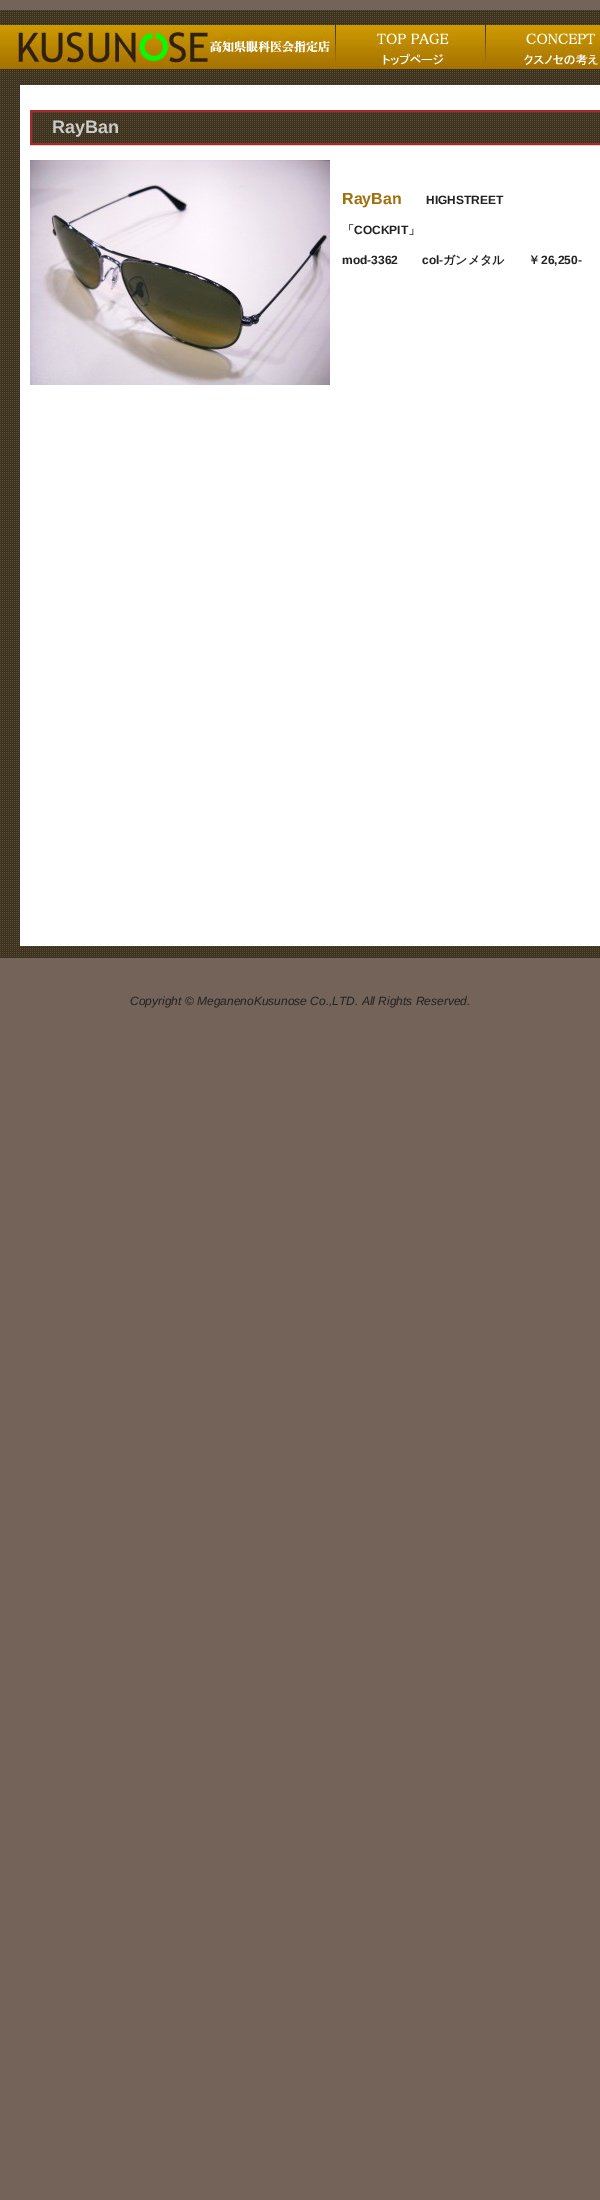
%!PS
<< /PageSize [600 2200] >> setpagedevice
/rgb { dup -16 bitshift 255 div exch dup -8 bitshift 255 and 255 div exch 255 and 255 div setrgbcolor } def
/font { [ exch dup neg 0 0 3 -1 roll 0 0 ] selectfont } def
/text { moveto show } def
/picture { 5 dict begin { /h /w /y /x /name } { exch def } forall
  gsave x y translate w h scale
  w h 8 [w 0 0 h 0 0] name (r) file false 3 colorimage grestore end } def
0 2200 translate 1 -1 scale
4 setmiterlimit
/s1 { /LiberationSans-Bold 18 font 16#CCCCCC rgb } def
/s2 { /LiberationSans-Bold 16 font 16#A16F0C rgb } def
/s3 { /LiberationSans-Bold 12 font 16#222222 rgb } def
/s4 { /WenQuanYiZenHei-Bold 12 font 16#222222 rgb } def
/s5 { /LiberationSans-Italic 12 font 16#222222 rgb } def
16#736359 rgb
0 0 600 2200 rectfill
(pic1.raw) 0 10 600 948 picture
(pic2.raw) 0 25 485 44 picture
(pic3.raw) 485 25 115 44 picture
16#FFFFFF rgb
20 85 580 861 rectfill
(pic4.raw) 32 112 568 31 picture
16#A52A2A rgb
2 setlinewidth
31 111 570 33 rectstroke
s1
(RayBan) 52 133 text
(pic5.raw) 30 160 300 225 picture
s2
(RayBan) 342 204 text
s3
(HIGHSTREET) 426 204 text
s4
(「) 342 234 text
s3
(COCKPIT) 354 234 text
s4
(」) 408 234 text
s3
(mod-3362) 342 264 text
(col-) 422 264 text
s4
(ガンメタル　　￥) 443 264 text
s3
(26,250-) 541 264 text
s5
(Copyright © MeganenoKusunose Co.,LTD. All Rights Reserved.) 130 1005 text
showpage
